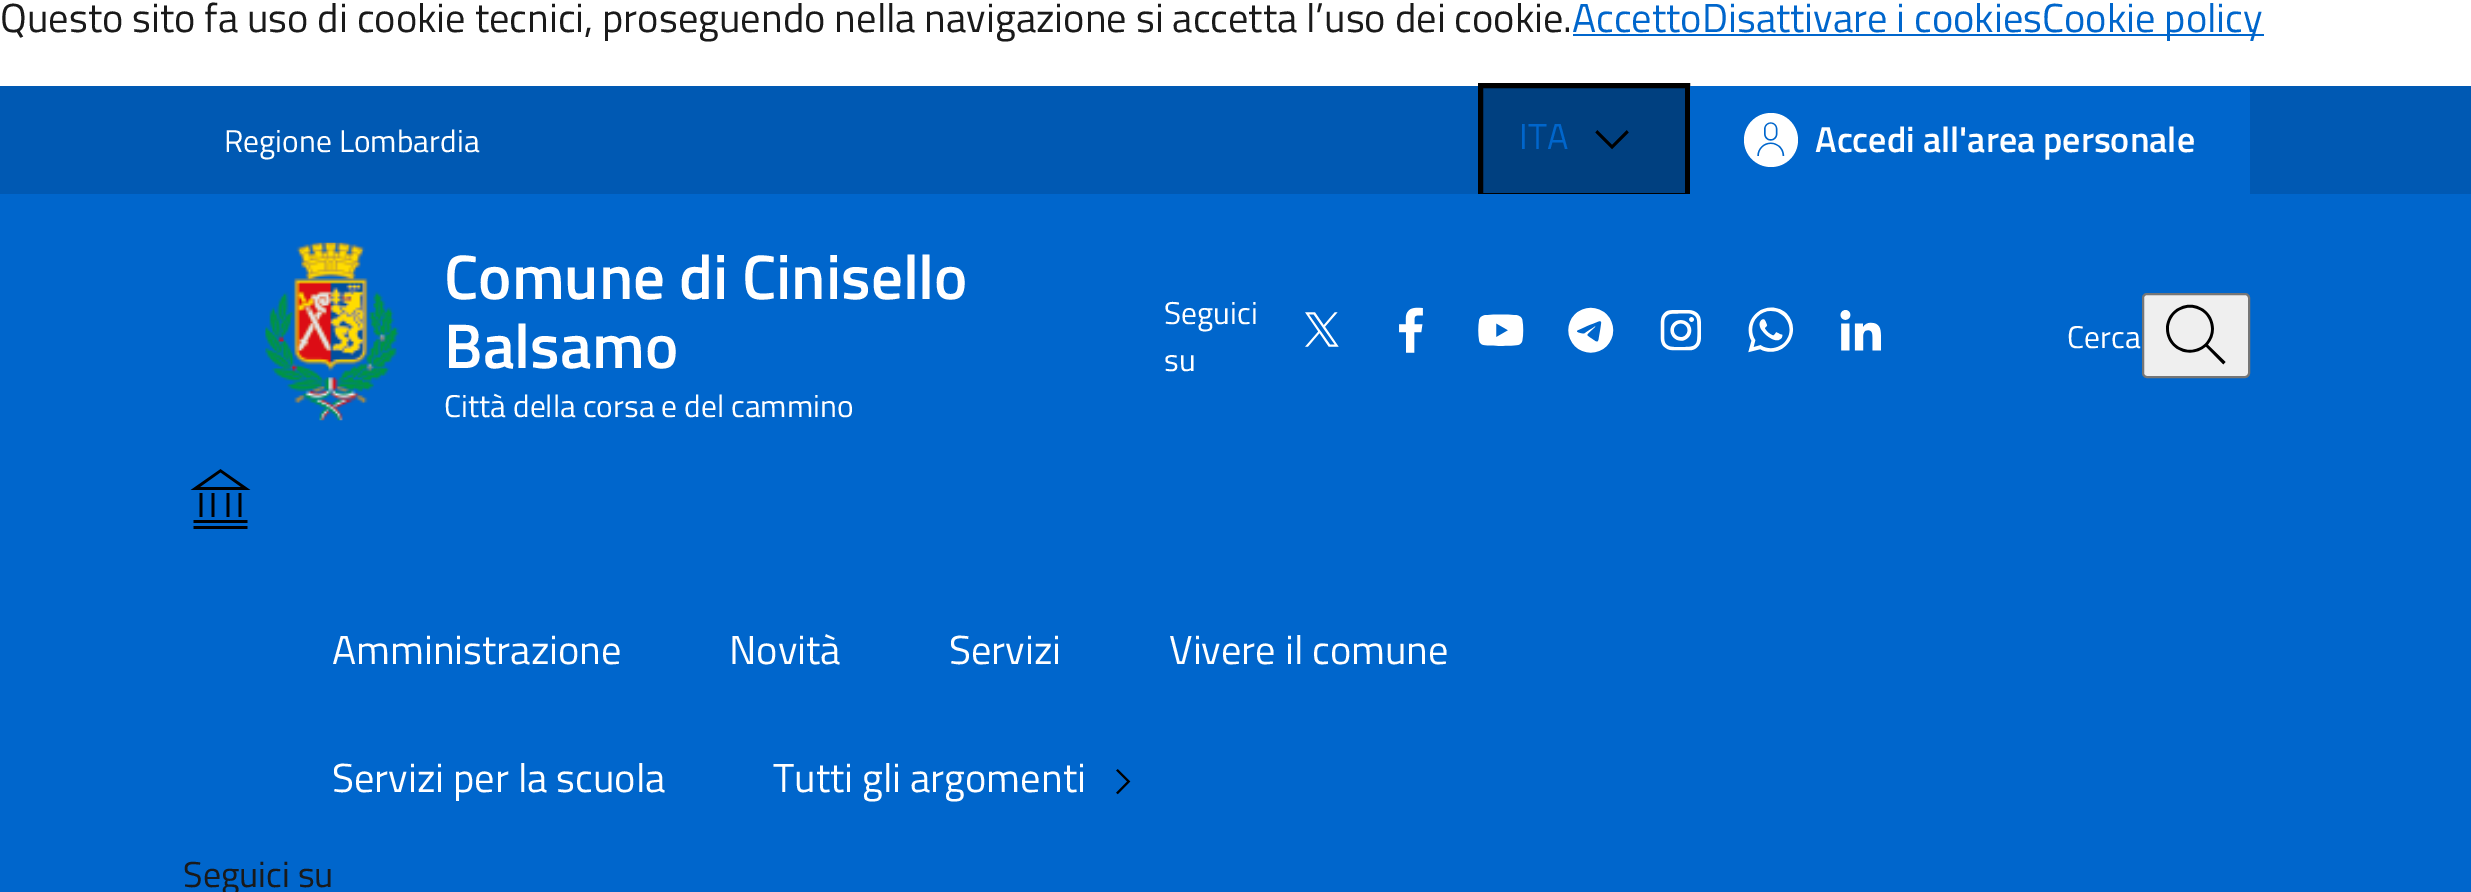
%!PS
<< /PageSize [2471 892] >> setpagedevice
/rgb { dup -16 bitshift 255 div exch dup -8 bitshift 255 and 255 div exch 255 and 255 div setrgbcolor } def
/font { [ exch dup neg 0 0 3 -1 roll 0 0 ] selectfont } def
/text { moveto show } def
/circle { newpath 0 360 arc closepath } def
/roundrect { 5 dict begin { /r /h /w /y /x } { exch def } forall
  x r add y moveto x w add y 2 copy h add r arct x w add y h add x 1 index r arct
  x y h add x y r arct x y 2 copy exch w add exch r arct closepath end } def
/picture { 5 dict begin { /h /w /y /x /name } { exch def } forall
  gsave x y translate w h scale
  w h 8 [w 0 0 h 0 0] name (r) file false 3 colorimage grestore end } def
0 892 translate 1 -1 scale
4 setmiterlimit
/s1 { /TitilliumWeb-Regular 40.5 font 16#1A1A1A rgb } def
/s2 { /TitilliumWeb-Regular 40.5 font 16#0066CC rgb } def
/s3 { /TitilliumWeb-Regular 31.5 font 16#FFFFFF rgb } def
/s4 { /TitilliumWeb-Regular 36 font 16#0066CC rgb } def
/s5 { /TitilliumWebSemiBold-SemiBold 36 font 16#FFFFFF rgb } def
/s6 { /TitilliumWebSemiBold-SemiBold 63 font 16#FFFFFF rgb } def
/s7 { /TitilliumWeb-Regular 40.5 font 16#FFFFFF rgb } def
/s8 { /TitilliumWeb-Regular 36 font 16#1A1A1A rgb } def
16#FFFFFF rgb
0 0 2471 892 rectfill
s1
(Questo sito fa uso di cookie tecnici, proseguendo nella navigazione si accetta l’uso dei cookie.) 0 32 text
16#0066CC rgb
1573 34 691 2 rectfill
(AccettoDisattivare i cookiesCookie policy) 1572 32 text
16#0059B3 rgb
0 86 2471 108 rectfill
s3
(Regione Lombardia) 224 152 text
16#004080 rgb
1480.5 85.5 moveto 1687.5 85.5 lineto 1687.5 195.5 lineto 1480.5 195.5 lineto closepath gsave fill grestore
16#000000 rgb
5 setlinewidth
stroke
s4
(ITA) 1519 149 text
(pic1.raw) 1595 130 34 20 picture
1690 86 560 108 rectfill
16#FFFFFF rgb
1771 140 27 circle fill
(pic2.raw) 1757 122 28 34 picture
s5
(Accedi all'area personale) 1815 152 text
16#0066CC rgb
0 194 2471 698 rectfill
(pic3.raw) 265 242 134 179 picture
s6
(Comune di Cinisello) 444 299 text
(Balsamo) 444 368 text
s3
(Città della corsa e del cammino) 444 417 text
(Seguici) 1164 324 text
(su) 1164 371 text
(pic4.raw) 1305 312 34 35 picture
(pic5.raw) 1399 307 24 46 picture
(pic6.raw) 1478 314 46 32 picture
(pic7.raw) 1568 307 46 46 picture
(pic8.raw) 1660 310 41 41 picture
(pic9.raw) 1748 307 46 46 picture
(pic10.raw) 1840 310 41 41 picture
(Cerca) 2067 348 text
16#EFEFEF rgb
2143 294 106 83 4 roundrect gsave fill grestore
16#767676 rgb
2 setlinewidth
stroke
(pic11.raw) 2166 304 60 61 picture
(pic12.raw) 190 469 61 60 picture
s7
(Amministrazione) 332 664 text
(Novità) 729 664 text
(Servizi) 949 664 text
(Vivere il comune) 1169 664 text
(Servizi per la scuola) 332 792 text
(Tutti gli argomenti) 773 792 text
(pic13.raw) 1116 769 15 26 picture
s8
(Seguici su) 183 887 text
showpage
